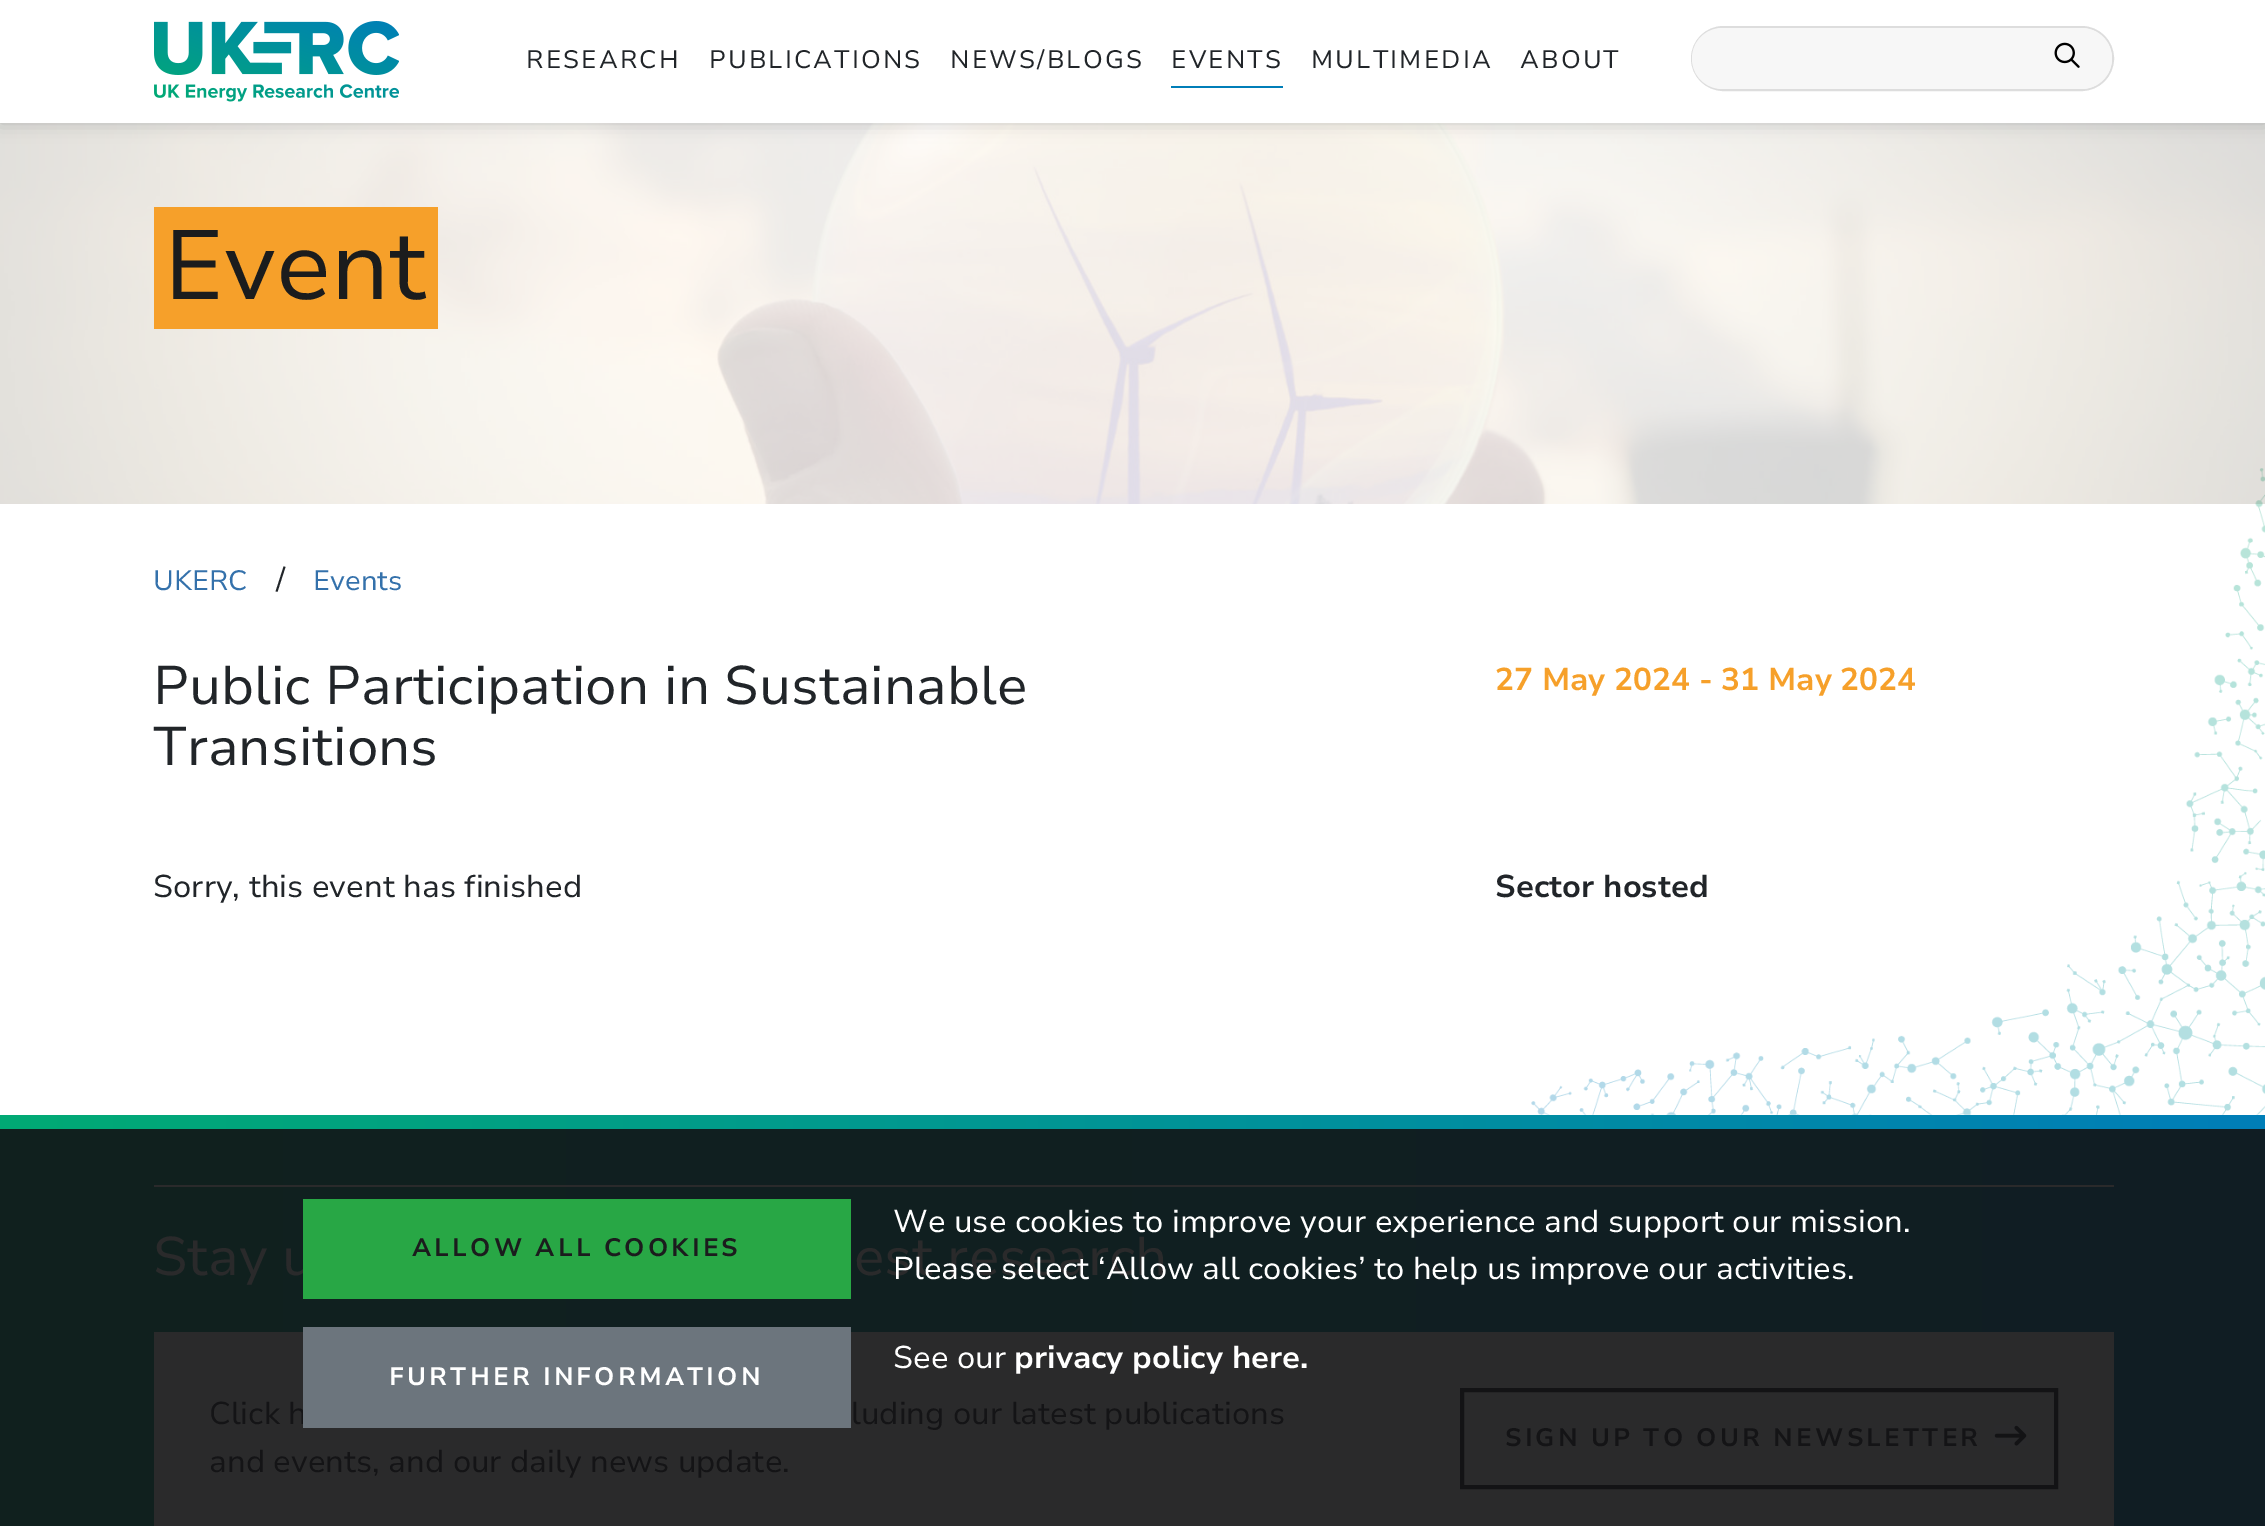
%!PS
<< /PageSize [2265 1526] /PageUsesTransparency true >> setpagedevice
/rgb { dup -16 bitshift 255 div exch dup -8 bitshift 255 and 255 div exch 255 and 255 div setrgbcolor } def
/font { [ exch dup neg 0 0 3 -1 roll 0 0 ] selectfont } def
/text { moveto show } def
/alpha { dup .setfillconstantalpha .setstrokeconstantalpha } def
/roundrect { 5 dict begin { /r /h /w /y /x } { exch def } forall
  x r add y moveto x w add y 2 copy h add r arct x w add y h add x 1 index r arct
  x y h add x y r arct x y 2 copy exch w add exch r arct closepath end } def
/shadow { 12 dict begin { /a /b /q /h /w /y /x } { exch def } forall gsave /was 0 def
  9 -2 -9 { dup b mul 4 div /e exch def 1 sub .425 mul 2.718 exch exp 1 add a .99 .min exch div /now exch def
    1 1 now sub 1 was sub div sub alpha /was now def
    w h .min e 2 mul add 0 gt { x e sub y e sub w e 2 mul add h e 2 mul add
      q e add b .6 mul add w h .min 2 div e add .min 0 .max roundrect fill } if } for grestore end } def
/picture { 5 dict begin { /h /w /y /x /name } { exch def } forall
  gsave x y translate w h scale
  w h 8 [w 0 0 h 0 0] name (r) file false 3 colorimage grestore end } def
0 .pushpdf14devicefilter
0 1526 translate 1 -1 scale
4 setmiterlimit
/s1 { /NunitoSans-Regular 98 font 16#1B1C1D rgb } def
/s2 { /NunitoSans-Regular 28 font 16#3471AB rgb } def
/s3 { /NunitoSans-Regular 31.5 font 16#212529 rgb } def
/s4 { /NunitoSans-Regular 54.3 font 16#212529 rgb } def
/s5 { /NunitoSans-Bold 31.5 font 16#F6A02A rgb } def
/s6 { /NunitoSans-Bold 31.5 font 16#212529 rgb } def
/s7 { /NunitoSans-Regular 54.3 font 16#2A2A2B rgb } def
/s8 { /NunitoSans-Regular 31.5 font 16#141416 rgb } def
/s9 { /NunitoSans-Regular 31.5 font 16#FFFFFF rgb } def
/s10 { /NunitoSans-Bold 31.5 font 16#FFFFFF rgb } def
16#FFFFFF rgb
0 0 2265 1526 rectfill
(pic4.raw) 1531 468 734 647 picture
(pic3.raw) 0 123 2265 381 picture
16#495057 rgb
0 0 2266 123 0 9 0.3 shadow
16#FFFFFF rgb
0 0 2265 123 rectfill
(pic1.raw) 154 21 245 81 picture
/NunitoSans-Regular 25.25 font
16#212529 rgb
526 68 moveto 2.1 0 (RESEARCH) ashow
709 68 moveto 2.1 0 (PUBLICATIONS) ashow
950 68 moveto 2.1 0 (NEWS/BLOGS) ashow
16#007EB8 rgb
1171 86 112 2 rectfill
16#212529 rgb
1171 68 moveto 2.1 0 (EVENTS) ashow
1311 68 moveto 2.1 0 (MULTIMEDIA) ashow
1520 68 moveto 2.1 0 (ABOUT) ashow
16#DDDDDD rgb
2 setlinewidth
1692 27 421 63 31.5 roundrect stroke
16#F7F7F7 rgb
1722.5 28 moveto 2027 28 lineto 2027 89 lineto 1722.5 89 lineto 1705.5 89 1692 75.5 1692 58.5 curveto 1692 41.5 1705.5 28 1722.5 28 curveto closepath fill
2027 28 moveto 2081.5 28 lineto 2098.5 28 2112 41.5 2112 58.5 curveto 2112 75.5 2098.5 89 2081.5 89 curveto 2027 89 lineto closepath fill
(pic2.raw) 2054 42 26 26 picture
16#F6A02A rgb
154 207 284 122 rectfill
s1
(Event) 164 299 text
s2
(UKERC) 153 590 text
s3
(/) 276 590 text
s2
(Events) 313 590 text
s4
(Public Participation in Sustainable) 153 704 text
(Transitions) 153 765 text
s5
(27 May 2024 - 31 May 2024) 1495 690 text
s3
(Sorry, this event has finished) 153 897 text
s6
(Sector hosted) 1495 897 text
gsave 0 1129 moveto 2265 1129 lineto 2265 1526 lineto 0 1526 lineto closepath clip newpath
<< /ShadingType 2 /ColorSpace /DeviceRGB /Coords [0 1386 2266 1386] /Extend [true true] /Function << /FunctionType 2 /Domain [0 1] /C0 [0.063 0.129 0.118] /C1 [0.063 0.114 0.141] /N 1 >> >> shfill grestore
s7
(Stay u) 153 1275 text
16#28A745 rgb
303 1199 548 100 rectfill
/NunitoSans-Bold 25.25 font
16#1B1C1D rgb
412 1256 moveto 3.15 0 (ALLOW ALL COOKIES) ashow
16#2A2A2B rgb
154 1332 1960 194 rectfill
s8
(Click h) 209 1424 text
16#6C757D rgb
303 1327 548 101 rectfill
/NunitoSans-Bold 25.25 font
16#FFFFFF rgb
389 1385 moveto 3.15 0 (FURTHER INFORMATION) ashow
s9
(We use cookies to improve your experience and support our mission.) 893 1232 text
s7
(est research) 854 1275 text
s9
(Please select ‘Allow all cookies’ to help us improve our activities.) 893 1279 text
(See our) 893 1368 text
s10
(privacy policy here.) 1014 1368 text
gsave 0 1115 moveto 2265 1115 lineto 2265 1129 lineto 0 1129 lineto closepath clip newpath
<< /ShadingType 2 /ColorSpace /DeviceRGB /Coords [0 1386 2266 1386] /Extend [true true] /Function << /FunctionType 2 /Domain [0 1] /C0 [0.004 0.667 0.455] /C1 [0 0.494 0.722] /N 1 >> >> shfill grestore
16#2A2A2B rgb
154 1185 1960 2 rectfill
s8
(luding our latest publications) 851 1424 text
(and events, and our daily news update.) 209 1472 text
16#131315 rgb
4 setlinewidth
1462 1390 594 97 rectstroke
/NunitoSans-Bold 25.25 font
16#141416 rgb
1505 1446 moveto 3.15 0 (SIGN UP TO OUR NEWSLETTER) ashow
(pic5.raw) 1994 1425 33 21 picture
.poppdf14devicefilter showpage
